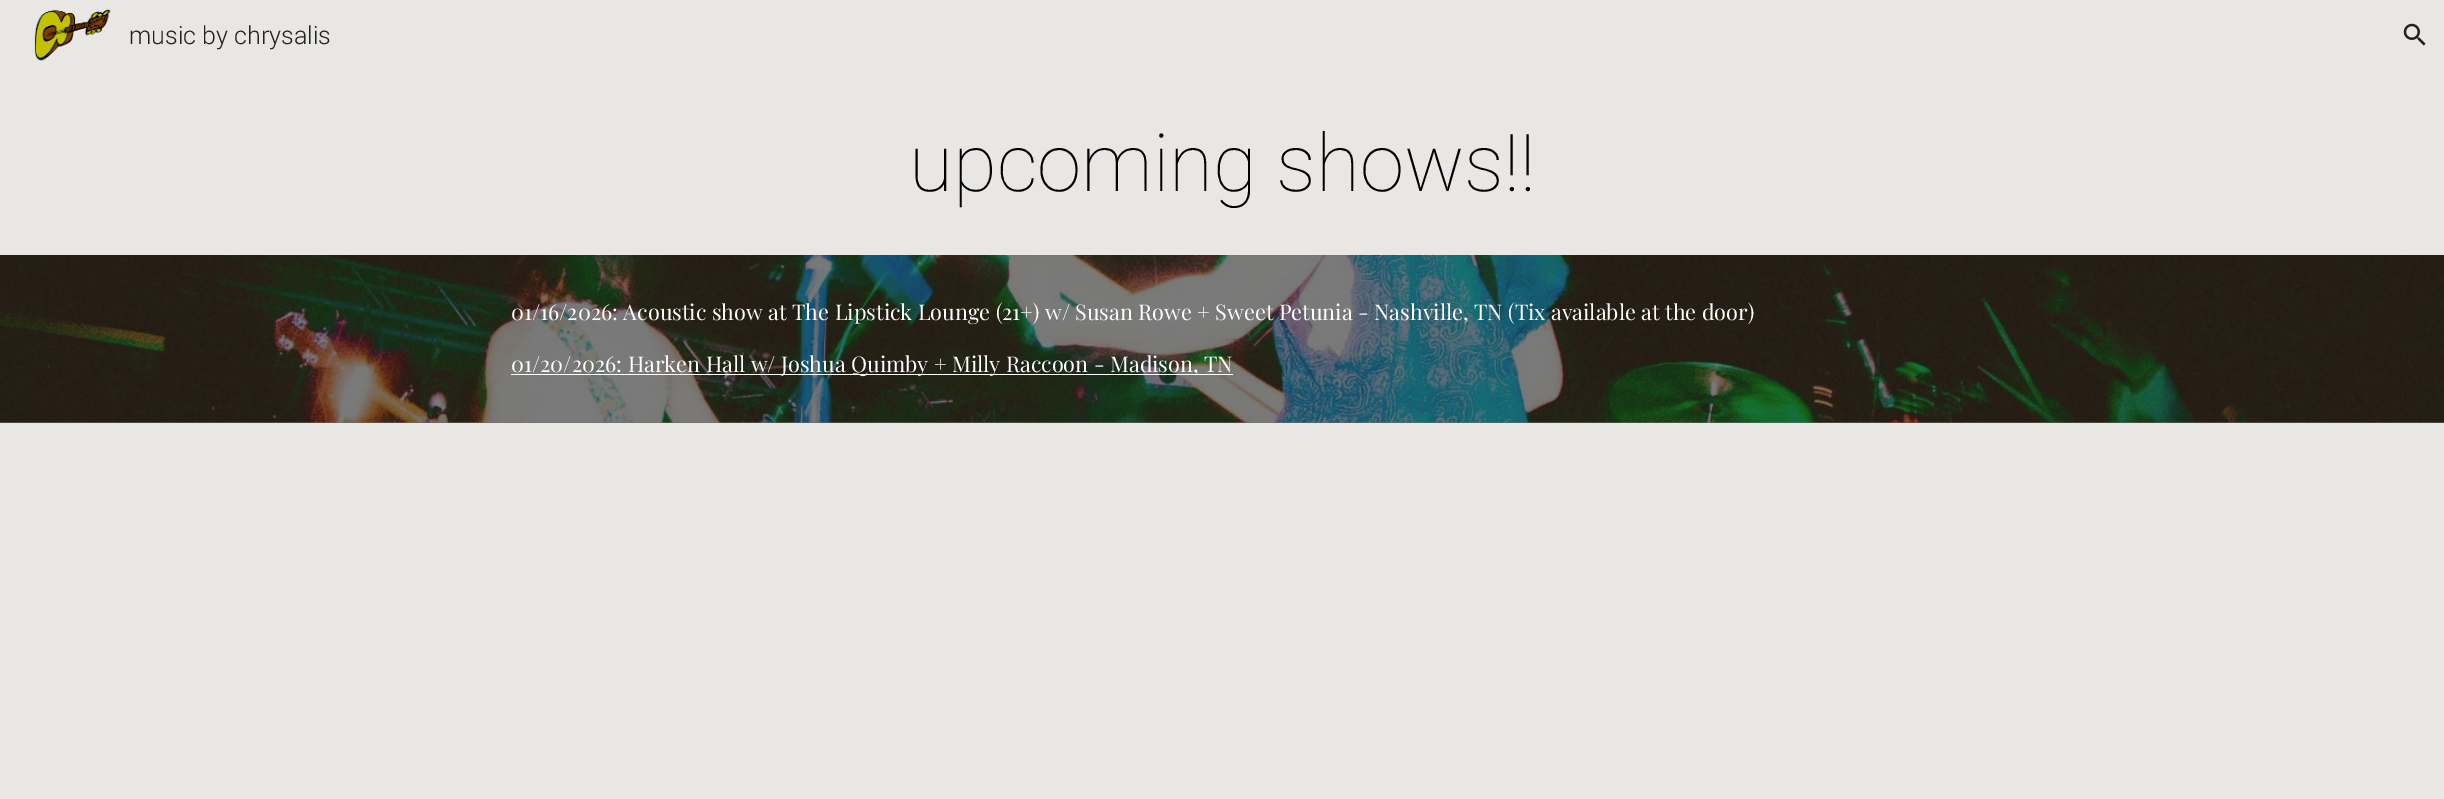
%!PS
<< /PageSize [2444 799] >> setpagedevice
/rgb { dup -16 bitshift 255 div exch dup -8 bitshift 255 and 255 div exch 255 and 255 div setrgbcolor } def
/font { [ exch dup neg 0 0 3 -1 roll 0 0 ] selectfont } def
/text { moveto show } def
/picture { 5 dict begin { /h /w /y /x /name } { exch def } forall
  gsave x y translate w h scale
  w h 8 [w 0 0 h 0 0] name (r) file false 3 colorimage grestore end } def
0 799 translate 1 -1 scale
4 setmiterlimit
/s1 { /Roboto-Light 25 font 16#212121 rgb } def
/s2 { /Roboto-Thin 80 font 16#000000 rgb } def
/s3 { /PlayfairDisplay-Regular 21.67 font 16#FFFFFF rgb } def
16#E9E7E4 rgb
0 0 2444 799 rectfill
(pic1.raw) 34 9 77 52 picture
s1
(music by chrysalis) 129 44 text
(pic2.raw) 2403 23 23 23 picture
s2
(upcoming shows!!) 909 191 text
16#71706F rgb
0 422 2444 1 rectfill
(pic3.raw) 0 255 2444 168 picture
s3
(01/16/2026: Acoustic show at The Lipstick Lounge \(21+\) w/ Susan Rowe + Sweet Petunia - Nashville, TN \(Tix available at the door\)) 511 320 text
511 374 722 1 rectfill
(01/20/2026: Harken Hall w/ Joshua Quimby + Milly Raccoon - Madison, TN) 511 372 text
showpage
